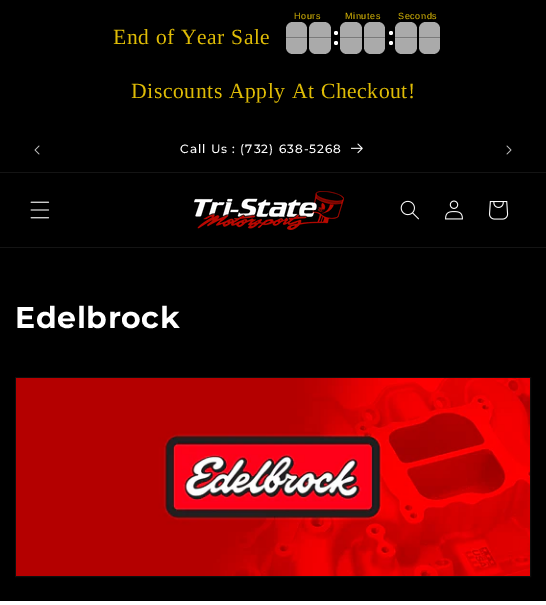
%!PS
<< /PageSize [546 605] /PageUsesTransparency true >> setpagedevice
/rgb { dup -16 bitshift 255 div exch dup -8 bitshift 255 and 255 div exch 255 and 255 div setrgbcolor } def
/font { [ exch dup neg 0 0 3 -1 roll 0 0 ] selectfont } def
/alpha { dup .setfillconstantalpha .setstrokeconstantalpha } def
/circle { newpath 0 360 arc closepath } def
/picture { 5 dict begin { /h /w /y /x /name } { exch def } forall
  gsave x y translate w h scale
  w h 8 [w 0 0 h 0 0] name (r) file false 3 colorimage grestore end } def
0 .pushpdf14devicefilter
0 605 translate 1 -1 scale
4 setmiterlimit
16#FFFFFF rgb
0 0 546 605 rectfill
16#000000 rgb
0 0 546 172 rectfill
/LiberationSans-Regular 9 font
16#DFBC06 rgb
294 19 moveto 0.6 0 (Hours) ashow
16#AAAAAA rgb
293 22 moveto 300 22 lineto 304 22 307 25 307 29 curveto 307 38 lineto 286 38 lineto 286 29 lineto 286 25 289 22 293 22 curveto closepath fill
0.4 alpha
16#333333 rgb
286 37 21 1 rectfill
1 alpha
16#AAAAAA rgb
286 38 moveto 307 38 lineto 307 47 lineto 307 51 304 54 300 54 curveto 293 54 lineto 289 54 286 51 286 47 curveto closepath fill
0.1 alpha
16#CCCCCC rgb
286 38 21 1 rectfill
1 alpha
16#AAAAAA rgb
316 22 moveto 324 22 lineto 328 22 331 25 331 29 curveto 331 38 lineto 309 38 lineto 309 29 lineto 309 25 312 22 316 22 curveto closepath fill
0.4 alpha
16#333333 rgb
309 37 22 1 rectfill
1 alpha
16#AAAAAA rgb
309 38 moveto 331 38 lineto 331 47 lineto 331 51 328 54 324 54 curveto 316 54 lineto 312 54 309 51 309 47 curveto closepath fill
0.1 alpha
16#CCCCCC rgb
309 38 22 1 rectfill
1 alpha
16#DFBC06 rgb
345 19 moveto 0.6 0 (Minutes) ashow
16#AAAAAA rgb
347 22 moveto 355 22 lineto 359 22 362 25 362 29 curveto 362 38 lineto 340 38 lineto 340 29 lineto 340 25 343 22 347 22 curveto closepath fill
0.4 alpha
16#333333 rgb
340 37 22 1 rectfill
1 alpha
16#AAAAAA rgb
340 38 moveto 362 38 lineto 362 47 lineto 362 51 359 54 355 54 curveto 347 54 lineto 343 54 340 51 340 47 curveto closepath fill
0.1 alpha
16#CCCCCC rgb
340 38 22 1 rectfill
1 alpha
16#AAAAAA rgb
371 22 moveto 378 22 lineto 382 22 385 25 385 29 curveto 385 38 lineto 364 38 lineto 364 29 lineto 364 25 367 22 371 22 curveto closepath fill
0.4 alpha
16#333333 rgb
364 37 21 1 rectfill
1 alpha
16#AAAAAA rgb
364 38 moveto 385 38 lineto 385 47 lineto 385 51 382 54 378 54 curveto 371 54 lineto 367 54 364 51 364 47 curveto closepath fill
0.1 alpha
16#CCCCCC rgb
364 38 21 1 rectfill
1 alpha
16#DFBC06 rgb
398 19 moveto 0.6 0 (Seconds) ashow
16#AAAAAA rgb
402 22 moveto 410 22 lineto 414 22 417 25 417 29 curveto 417 38 lineto 395 38 lineto 395 29 lineto 395 25 398 22 402 22 curveto closepath fill
0.4 alpha
16#333333 rgb
395 37 22 1 rectfill
1 alpha
16#AAAAAA rgb
395 38 moveto 417 38 lineto 417 47 lineto 417 51 414 54 410 54 curveto 402 54 lineto 398 54 395 51 395 47 curveto closepath fill
0.1 alpha
16#CCCCCC rgb
395 38 22 1 rectfill
1 alpha
16#AAAAAA rgb
426 22 moveto 433 22 lineto 437 22 440 25 440 29 curveto 440 38 lineto 419 38 lineto 419 29 lineto 419 25 422 22 426 22 curveto closepath fill
0.4 alpha
16#333333 rgb
419 37 21 1 rectfill
1 alpha
16#AAAAAA rgb
419 38 moveto 440 38 lineto 440 47 lineto 440 51 437 54 433 54 curveto 426 54 lineto 422 54 419 51 419 47 curveto closepath fill
0.1 alpha
16#CCCCCC rgb
419 38 21 1 rectfill
1 alpha
16#FFFFFF rgb
336 33 2 circle fill
336 43 2 circle fill
391 33 2 circle fill
391 43 2 circle fill
/LiberationSerif-Regular 21.6 font
16#DFBC06 rgb
113 44 moveto 0.6 0 (End of Year Sale) ashow
131 98 moveto 0.6 0 (Discounts Apply At Checkout!) ashow
16#141414 rgb
0 172 546 1 rectfill
(pic1.raw) 34 145 6 10 picture
/Montserrat-Medium 12 font
16#FFFFFF rgb
180 153 moveto 1 0 (Call Us : \(732\) 638-5268) ashow
(pic2.raw) 351 143 12 11 picture
(pic3.raw) 506 145 6 10 picture
16#000000 rgb
0 173 546 74 rectfill
16#141414 rgb
0 247 546 1 rectfill
(pic4.raw) 30 201 20 18 picture
(pic5.raw) 194 191 150 39 picture
(pic6.raw) 400 200 19 20 picture
(pic7.raw) 445 200 18 20 picture
(pic8.raw) 489 201 20 19 picture
16#000000 rgb
0 248 546 353 rectfill
/Montserrat-Bold 30 font
16#FFFFFF rgb
15 328 moveto 0.6 0 (Edelbrock) ashow
16#0D0D0D rgb
15.5 377.5 515 199 rectstroke
(pic9.raw) 16 378 514 198 picture
.poppdf14devicefilter showpage
